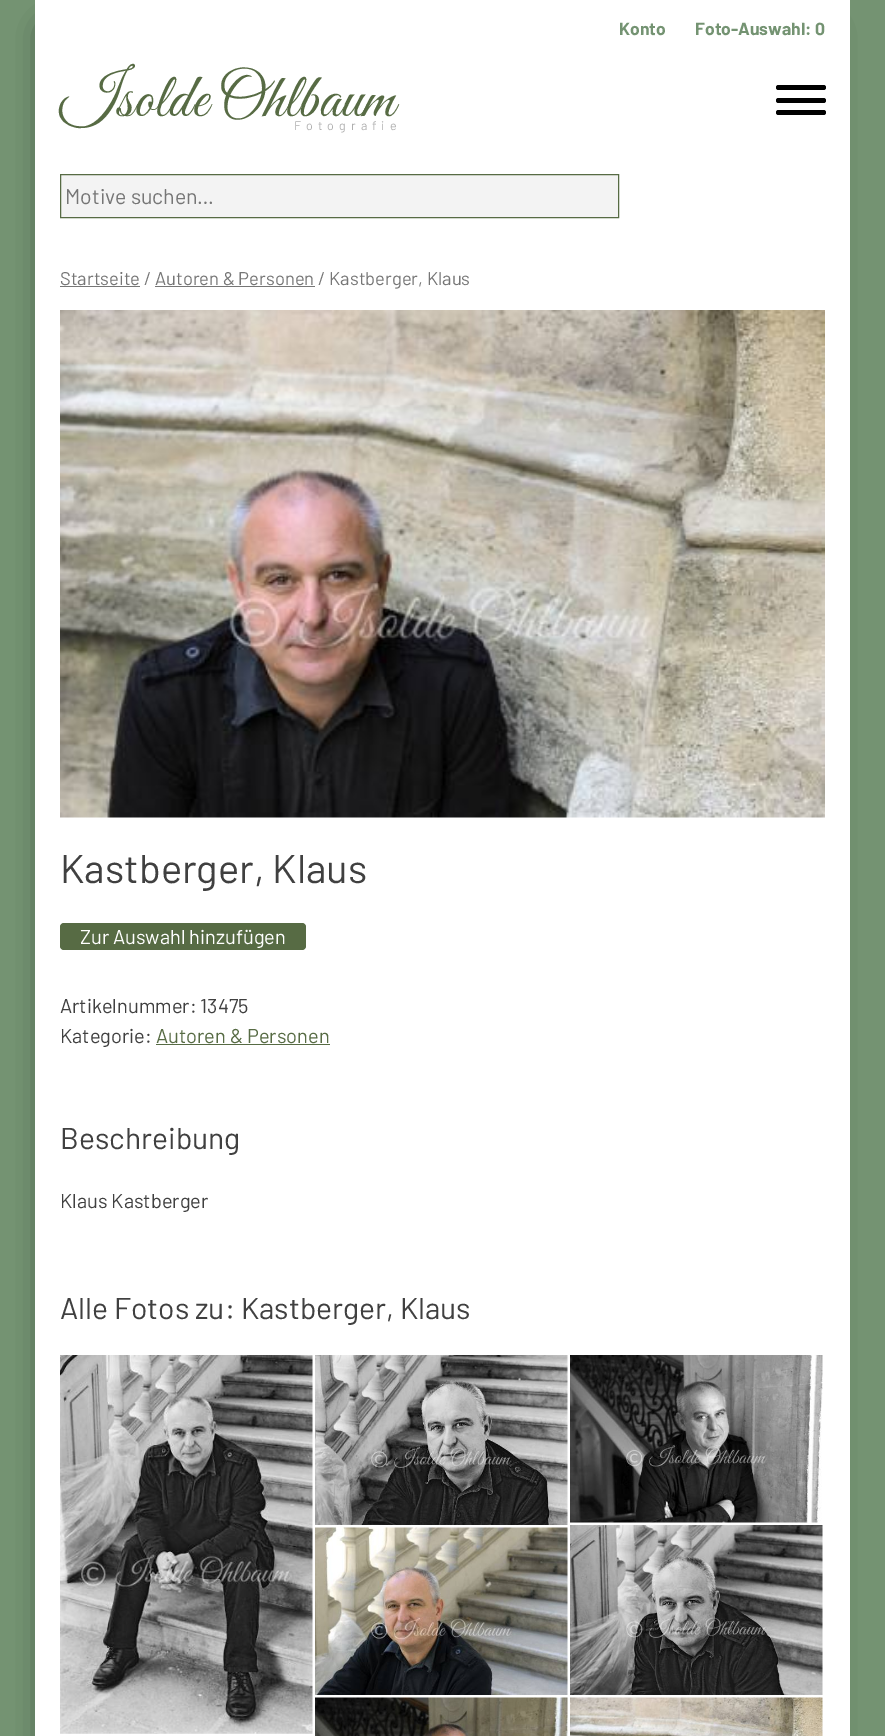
%!PS
<< /PageSize [885 1736] /PageUsesTransparency true >> setpagedevice
/rgb { dup -16 bitshift 255 div exch dup -8 bitshift 255 and 255 div exch 255 and 255 div setrgbcolor } def
/font { [ exch dup neg 0 0 3 -1 roll 0 0 ] selectfont } def
/text { moveto show } def
/alpha { dup .setfillconstantalpha .setstrokeconstantalpha } def
/roundrect { 5 dict begin { /r /h /w /y /x } { exch def } forall
  x r add y moveto x w add y 2 copy h add r arct x w add y h add x 1 index r arct
  x y h add x y r arct x y 2 copy exch w add exch r arct closepath end } def
/shadow { 12 dict begin { /a /b /q /h /w /y /x } { exch def } forall gsave /was 0 def
  9 -2 -9 { dup b mul 4 div /e exch def 1 sub .425 mul 2.718 exch exp 1 add a .99 .min exch div /now exch def
    1 1 now sub 1 was sub div sub alpha /was now def
    w h .min e 2 mul add 0 gt { x e sub y e sub w e 2 mul add h e 2 mul add
      q e add b .6 mul add w h .min 2 div e add .min 0 .max roundrect fill } if } for grestore end } def
/picture { 5 dict begin { /h /w /y /x /name } { exch def } forall
  gsave x y translate w h scale
  w h 8 [w 0 0 h 0 0] name (r) file false 3 colorimage grestore end } def
0 .pushpdf14devicefilter
0 1736 translate 1 -1 scale
4 setmiterlimit
/s1 { /Barlow-Bold 17.5 font 16#749372 rgb } def
/s2 { /GreatVibes-Regular 62.5 font 16#576B44 rgb } def
/s3 { /Barlow-Regular 21.25 font 16#767676 rgb } def
/s4 { /Barlow-Regular 18.4 font 16#767676 rgb } def
/s5 { /Barlow-Regular 40 font 16#404040 rgb } def
/s6 { /Barlow-Regular 20 font 16#FFFFFF rgb } def
/s7 { /Barlow-Regular 20 font 16#404040 rgb } def
/s8 { /Barlow-Regular 20 font 16#576B44 rgb } def
/s9 { /Barlow-Regular 30 font 16#404040 rgb } def
16#749372 rgb
0 0 885 1736 rectfill
16#000000 rgb
49 31 775 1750 0 15 0.75 shadow
16#FFFFFF rgb
35 0 815 1736 rectfill
s1
(Konto) 619 35 text
(Foto-Auswahl: 0) 695 35 text
s2
(Isolde Ohlbaum) 60 116 text
/Barlow-Regular 12.5 font
16#AFAFAF rgb
294 130 moveto 5 0 (Fotografie) ashow
16#000000 rgb
776 110 50 5 2.5 roundrect fill
776 85 50 5 2.5 roundrect fill
776 98 50 5 2.5 roundrect fill
16#F3F3F3 rgb
60.5 174.5 moveto 618.5 174.5 lineto 618.5 217.5 lineto 60.5 217.5 lineto closepath gsave fill grestore
16#576B44 rgb
stroke
s3
(Motive suchen…) 65 204 text
60 286 80 1 rectfill
s4
(Startseite / Autoren & Personen / Kastberger, Klaus) 60 285 text
155 286 160 1 rectfill
(pic1.raw) 60 310 765 508 picture
s5
(Kastberger, Klaus) 60 883 text
16#576B44 rgb
60 923 246 27 4 roundrect fill
s6
(Zur Auswahl hinzufügen) 80 944 text
s7
(Artikelnummer: 13475) 60 1013 text
(Kategorie:) 60 1043 text
s8
(Autoren & Personen) 156 1043 text
156 1044 174 1 rectfill
s9
(Beschreibung) 60 1149 text
s7
(Klaus Kastberger) 60 1208 text
s9
(Alle Fotos zu: Kastberger, Klaus) 60 1319 text
(pic2.raw) 60 1355 253 379 picture
(pic3.raw) 315 1355 253 170 picture
(pic4.raw) 570 1355 253 168 picture
(pic5.raw) 315 1527 253 168 picture
(pic6.raw) 570 1525 253 170 picture
(pic7.raw) 315 1697 253 39 picture
(pic8.raw) 570 1697 253 39 picture
.poppdf14devicefilter showpage
